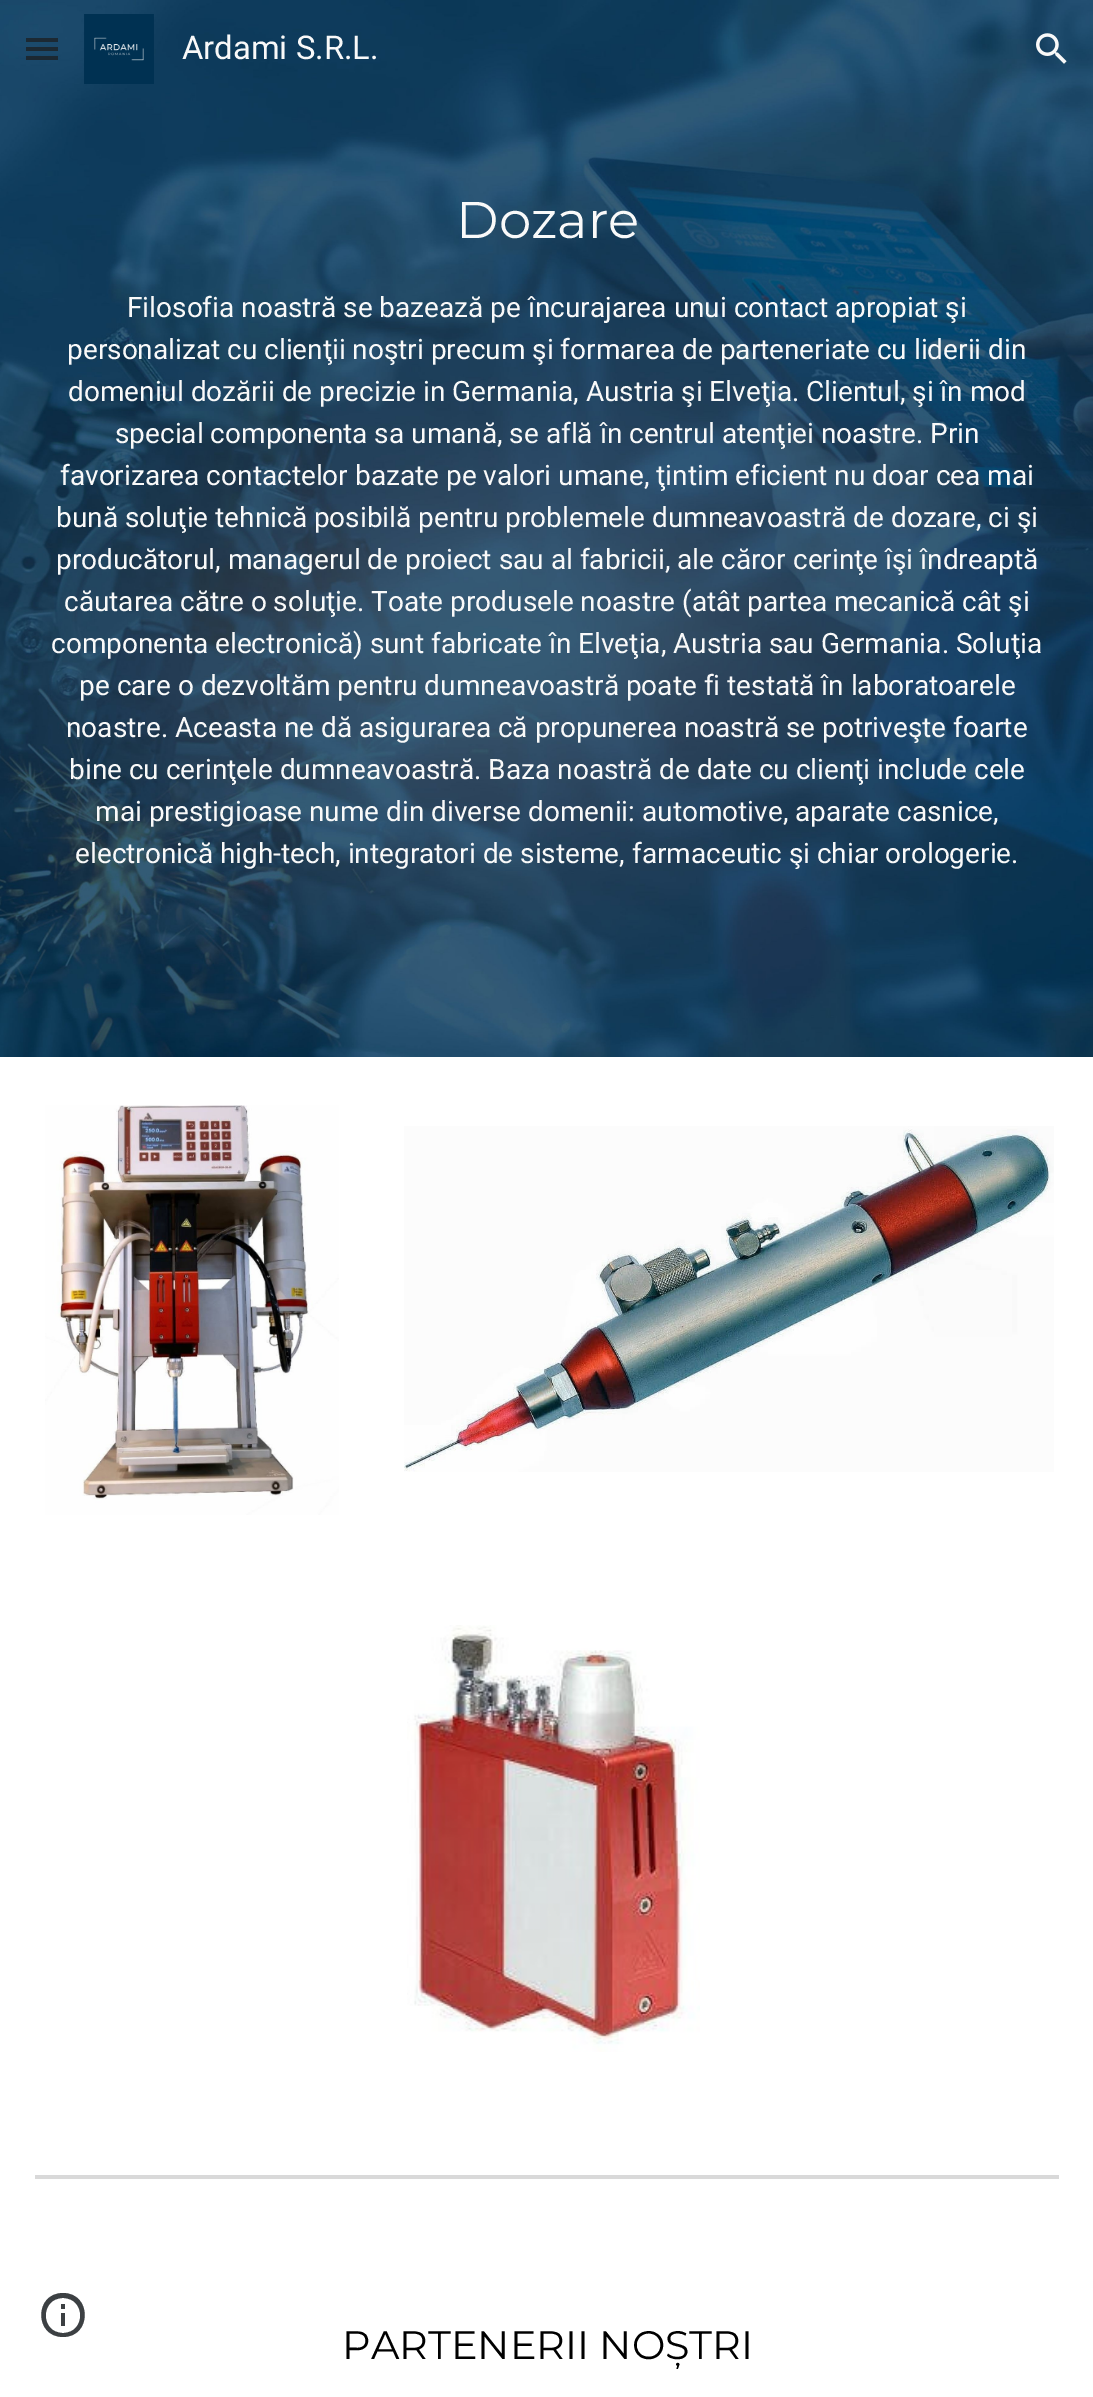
%!PS
<< /PageSize [1093 2397] >> setpagedevice
/rgb { dup -16 bitshift 255 div exch dup -8 bitshift 255 and 255 div exch 255 and 255 div setrgbcolor } def
/font { [ exch dup neg 0 0 3 -1 roll 0 0 ] selectfont } def
/text { moveto show } def
/picture { 5 dict begin { /h /w /y /x /name } { exch def } forall
  gsave x y translate w h scale
  w h 8 [w 0 0 h 0 0] name (r) file false 3 colorimage grestore end } def
0 2397 translate 1 -1 scale
4 setmiterlimit
/s1 { /Roboto-Regular 32.75 font 16#F9F9F9 rgb } def
/s2 { /Montserrat-Regular 51.5 font 16#F9F9F9 rgb } def
/s3 { /Roboto-Regular 28 font 16#F9F9F9 rgb } def
/s4 { /Montserrat-Regular 39.75 font 16#000000 rgb } def
16#FFFFFF rgb
0 0 1093 2397 rectfill
(pic3.raw) 0 0 1093 1057 picture
16#1C2933 rgb
26 38 32 4 rectfill
16#1C2932 rgb
26 47 32 4 rectfill
16#1B2832 rgb
26 56 32 4 rectfill
(pic1.raw) 84 14 70 70 picture
s1
(Ardami S.R.L.) 182 59 text
(pic2.raw) 1036 33 31 31 picture
s2
(Dozare) 456 238 text
s3
(Filosofia noastră se bazează pe încurajarea unui contact apropiat şi) 127 317 text
(personalizat cu clienţii noştri precum şi formarea de parteneriate cu liderii din) 67 359 text
(domeniul dozării de precizie in Germania, Austria şi Elveţia. Clientul, şi în mod) 68 401 text
(special componenta sa umană, se află în centrul atenţiei noastre. Prin) 115 443 text
(favorizarea contactelor bazate pe valori umane, ţintim eficient nu doar cea mai) 60 485 text
(bună soluţie tehnică posibilă pentru problemele dumneavoastră de dozare, ci şi) 56 527 text
(producătorul, managerul de proiect sau al fabricii, ale căror cerinţe îşi îndreaptă) 56 569 text
(căutarea către o soluţie. Toate produsele noastre \(atât partea mecanică cât şi) 64 611 text
(componenta electronică\) sunt fabricate în Elveţia, Austria sau Germania. Soluţia) 51 653 text
(pe care o dezvoltăm pentru dumneavoastră poate fi testată în laboratoarele) 79 695 text
(noastre. Aceasta ne dă asigurarea că propunerea noastră se potriveşte foarte) 66 737 text
(bine cu cerinţele dumneavoastră. Baza noastră de date cu clienţi include cele) 69 779 text
(mai prestigioase nume din diverse domenii: automotive, aparate casnice,) 95 821 text
(electronică high-tech, integratori de sisteme, farmaceutic şi chiar orologerie.) 75 863 text
(pic4.raw) 45 1105 294 410 picture
(pic5.raw) 404 1126 650 346 picture
(pic6.raw) 407 1625 293 427 picture
16#D9D9D9 rgb
35 2175 1024 4 rectfill
s4
(PARTENERII NOȘTRI) 342 2359 text
16#3C4043 rgb
61 2326 moveto 65 2326 lineto 65 2313 lineto 61 2313 lineto closepath 63 2293 moveto 34 2293 34 2337 63 2337 curveto 92 2337 92 2293 63 2293 curveto closepath 63 2333 moveto 40 2333 40 2298 63 2298 curveto 86 2298 86 2333 63 2333 curveto closepath 61 2309 moveto 65 2309 lineto 65 2304 lineto 61 2304 lineto closepath fill
showpage
